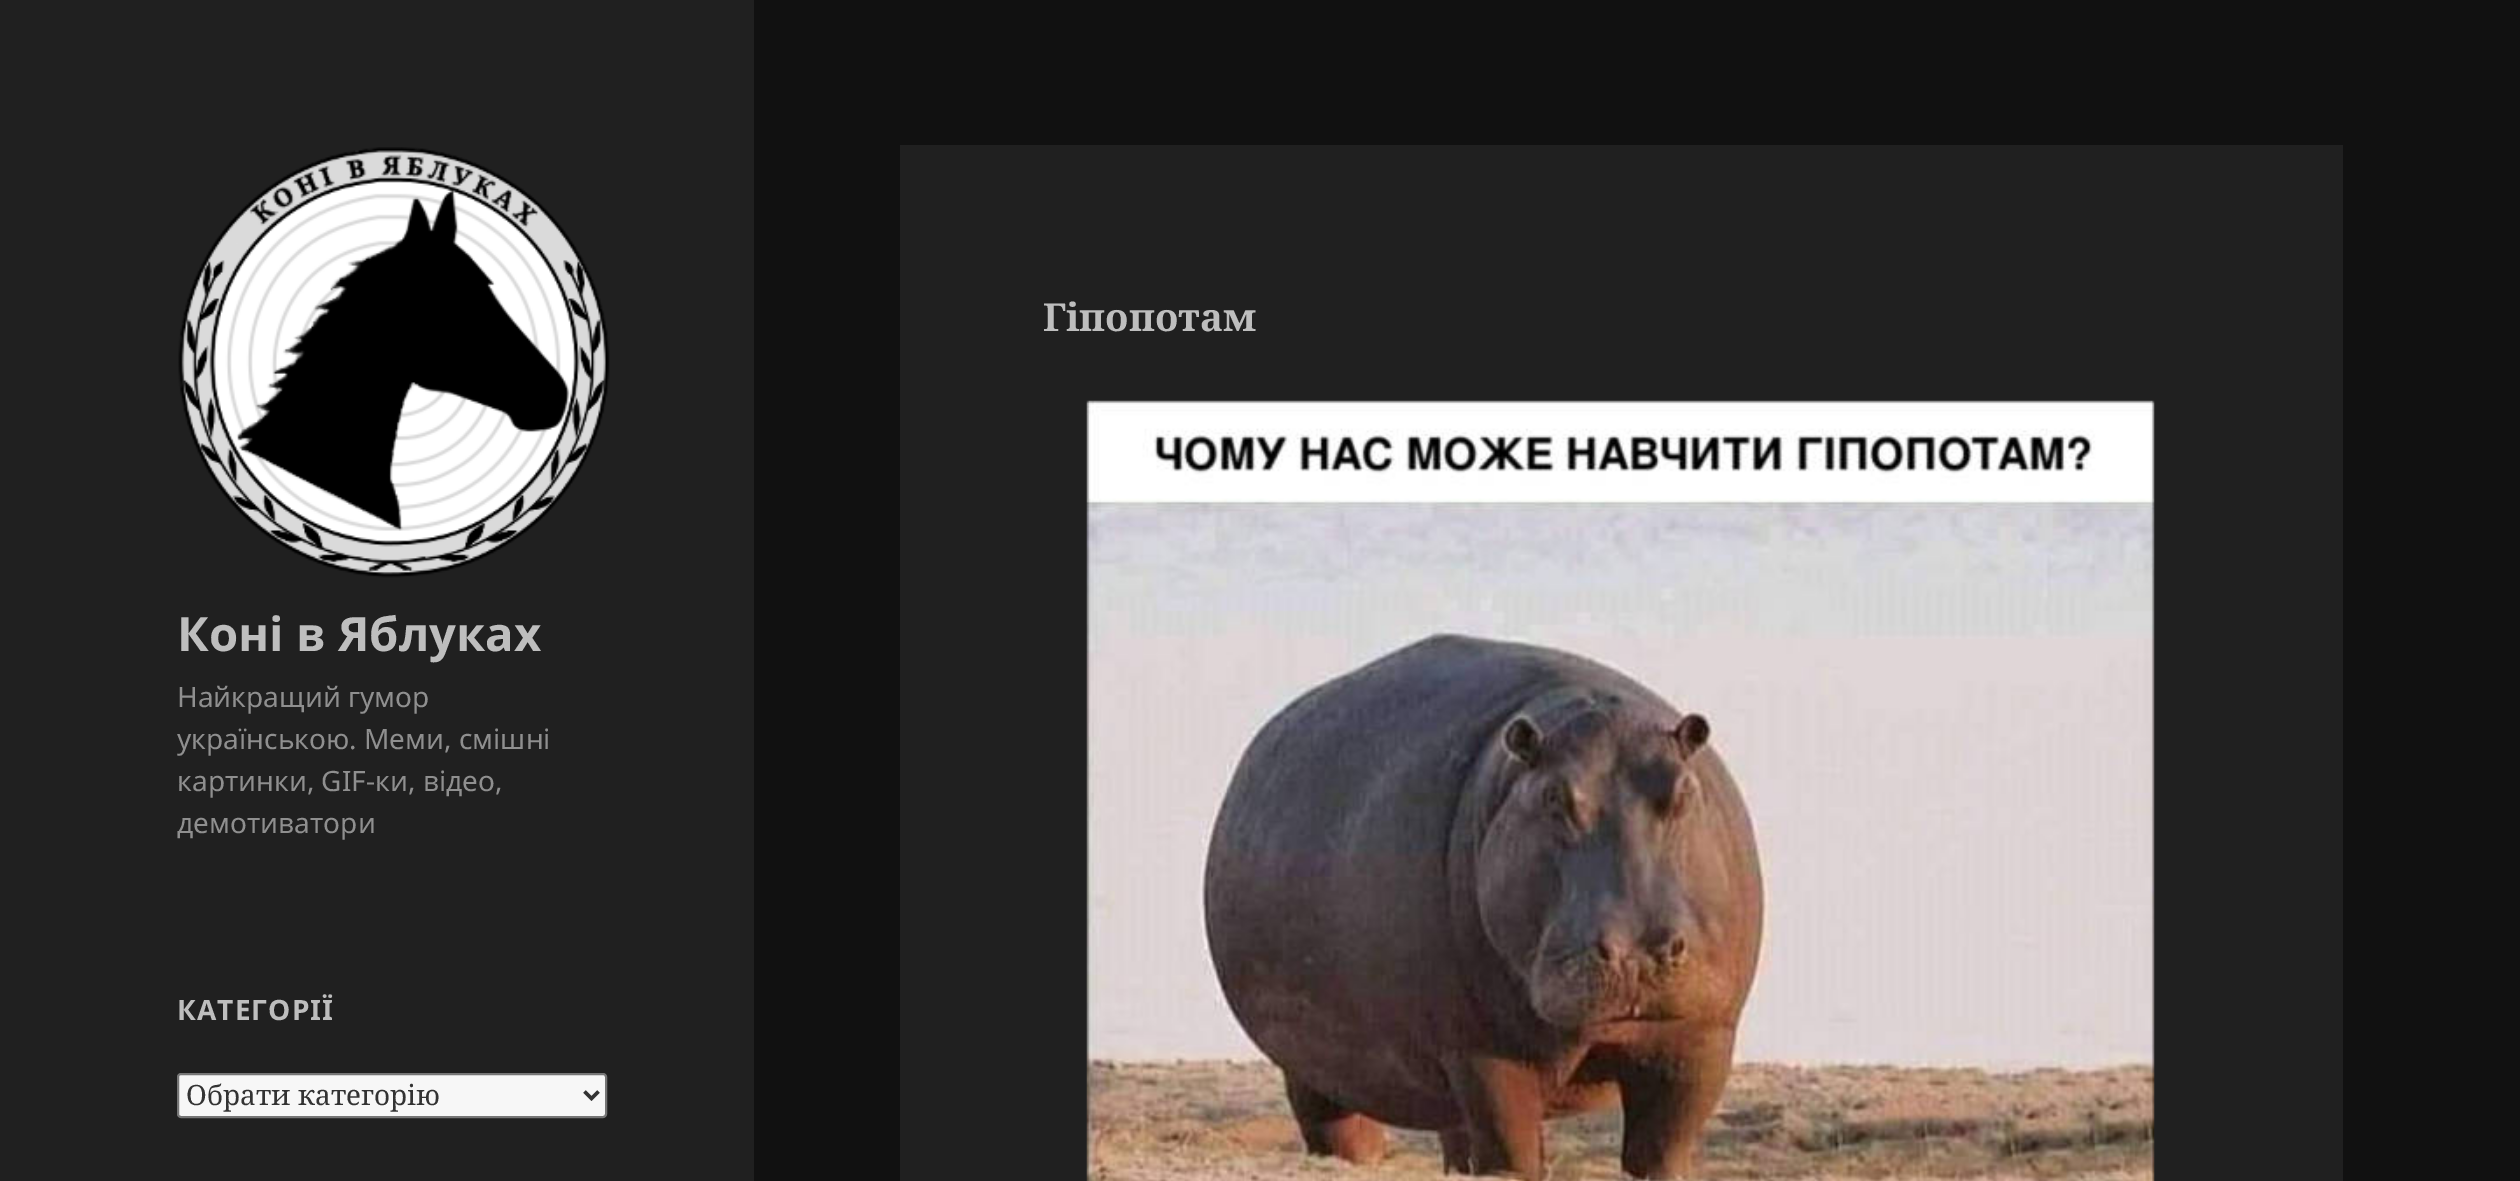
%!PS
<< /PageSize [2520 1181] >> setpagedevice
/rgb { dup -16 bitshift 255 div exch dup -8 bitshift 255 and 255 div exch 255 and 255 div setrgbcolor } def
/font { [ exch dup neg 0 0 3 -1 roll 0 0 ] selectfont } def
/text { moveto show } def
/roundrect { 5 dict begin { /r /h /w /y /x } { exch def } forall
  x r add y moveto x w add y 2 copy h add r arct x w add y h add x 1 index r arct
  x y h add x y r arct x y 2 copy exch w add exch r arct closepath end } def
/picture { 5 dict begin { /h /w /y /x /name } { exch def } forall
  gsave x y translate w h scale
  w h 8 [w 0 0 h 0 0] name (r) file false 3 colorimage grestore end } def
0 1181 translate 1 -1 scale
4 setmiterlimit
/s1 { /NotoSerif-Bold 38.5 font 16#BEBEBE rgb } def
/s2 { /NotoSans-Bold 47.25 font 16#BEBEBE rgb } def
/s3 { /NotoSans-Regular 28 font 16#8F8F8F rgb } def
/s4 { /NotoSerif-Regular 28 font 16#333333 rgb } def
16#111111 rgb
0 0 2520 1181 rectfill
16#202020 rgb
0 0 754 1181 rectfill
900 145 1443 1036 rectfill
s1
(Гіпопотам) 1043 331 text
(pic1.raw) 1086 400 1069 781 picture
(pic2.raw) 178 147 432 431 picture
s2
(Коні в Яблуках) 177 651 text
s3
(Найкращий гумор) 177 707 text
(українською. Меми, смішні) 177 749 text
(картинки, GIF-ки, відео,) 177 791 text
(демотиватори) 177 833 text
/NotoSans-Bold 28 font
16#BEBEBE rgb
177 1020 moveto 1.1 0 (КАТЕГОРІЇ) ashow
16#F7F7F7 rgb
178 1074 428 43 3 roundrect gsave fill grestore
16#767676 rgb
2 setlinewidth
stroke
16#333333 rgb
3.5 setlinewidth
584.5 1091.5 moveto 591.5 1098.5 lineto 598.5 1091.5 lineto stroke
s4
(Обрати категорію) 186 1105 text
showpage
